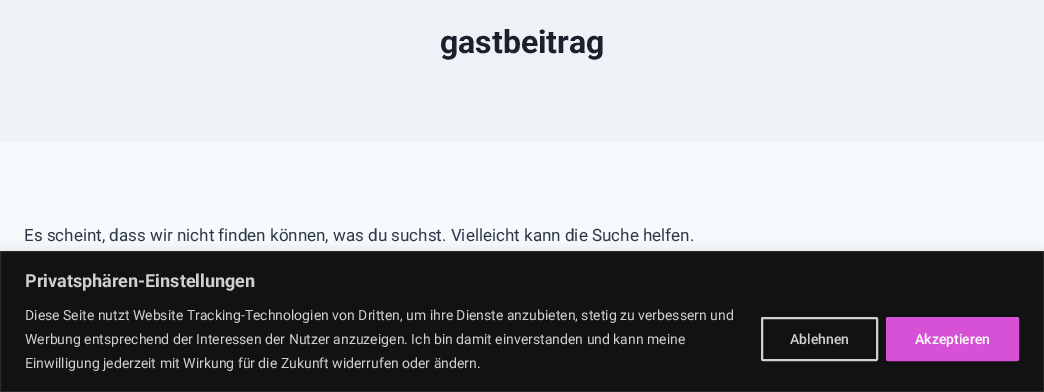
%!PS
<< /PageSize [1044 392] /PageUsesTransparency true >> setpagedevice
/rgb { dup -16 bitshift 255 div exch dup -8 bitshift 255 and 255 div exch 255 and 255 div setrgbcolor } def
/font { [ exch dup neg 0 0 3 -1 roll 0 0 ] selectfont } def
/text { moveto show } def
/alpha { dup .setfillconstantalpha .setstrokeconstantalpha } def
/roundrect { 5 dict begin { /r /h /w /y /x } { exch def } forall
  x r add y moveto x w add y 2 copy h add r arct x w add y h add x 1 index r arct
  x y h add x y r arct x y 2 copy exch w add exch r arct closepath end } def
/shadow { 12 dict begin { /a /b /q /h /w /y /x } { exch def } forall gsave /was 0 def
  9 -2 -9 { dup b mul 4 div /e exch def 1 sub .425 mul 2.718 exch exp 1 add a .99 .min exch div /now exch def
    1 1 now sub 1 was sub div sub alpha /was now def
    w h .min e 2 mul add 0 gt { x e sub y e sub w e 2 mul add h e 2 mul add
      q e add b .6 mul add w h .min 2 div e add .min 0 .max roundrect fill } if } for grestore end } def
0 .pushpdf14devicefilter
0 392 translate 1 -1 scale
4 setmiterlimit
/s1 { /Roboto-Bold 32 font 16#1A202C rgb } def
/s2 { /Roboto-Regular 17 font 16#2D3748 rgb } def
/s3 { /Roboto-Bold 18 font 16#D0D0D0 rgb } def
/s4 { /Roboto-Regular 14 font 16#D0D0D0 rgb } def
/s5 { /Roboto-Medium 14 font 16#D0D0D0 rgb } def
/s6 { /Roboto-Medium 14 font 16#FFFFFF rgb } def
16#F7FAFC rgb
0 0 1044 392 rectfill
16#EDF2F7 rgb
0 0 1044 142 rectfill
s1
(gastbeitrag) 440 53 text
s2
(Es scheint, dass wir nicht finden können, was du suchst. Vielleicht kann die Suche helfen.) 24 241 text
16#ACABAB rgb
0 250 1044 141 0 5 0.3 shadow
16#121212 rgb
0.5 251.5 moveto 1043.5 251.5 lineto 1043.5 391.5 lineto 0.5 391.5 lineto closepath gsave fill grestore
16#2A2A2A rgb
stroke
s3
(Privatsphären-Einstellungen) 25 287 text
s4
(Diese Seite nutzt Website Tracking-Technologien von Dritten, um ihre Dienste anzubieten, stetig zu verbessern und) 25 320 text
(Werbung entsprechend der Interessen der Nutzer anzuzeigen. Ich bin damit einverstanden und kann meine) 25 344 text
(Einwilligung jederzeit mit Wirkung für die Zukunft widerrufen oder ändern.) 25 368 text
2 setlinewidth
762 318 115 42 1 roundrect stroke
s5
(Ablehnen) 790 344 text
16#D651D6 rgb
887 318 131 42 1 roundrect gsave fill grestore
stroke
s6
(Akzeptieren) 915 344 text
.poppdf14devicefilter showpage
